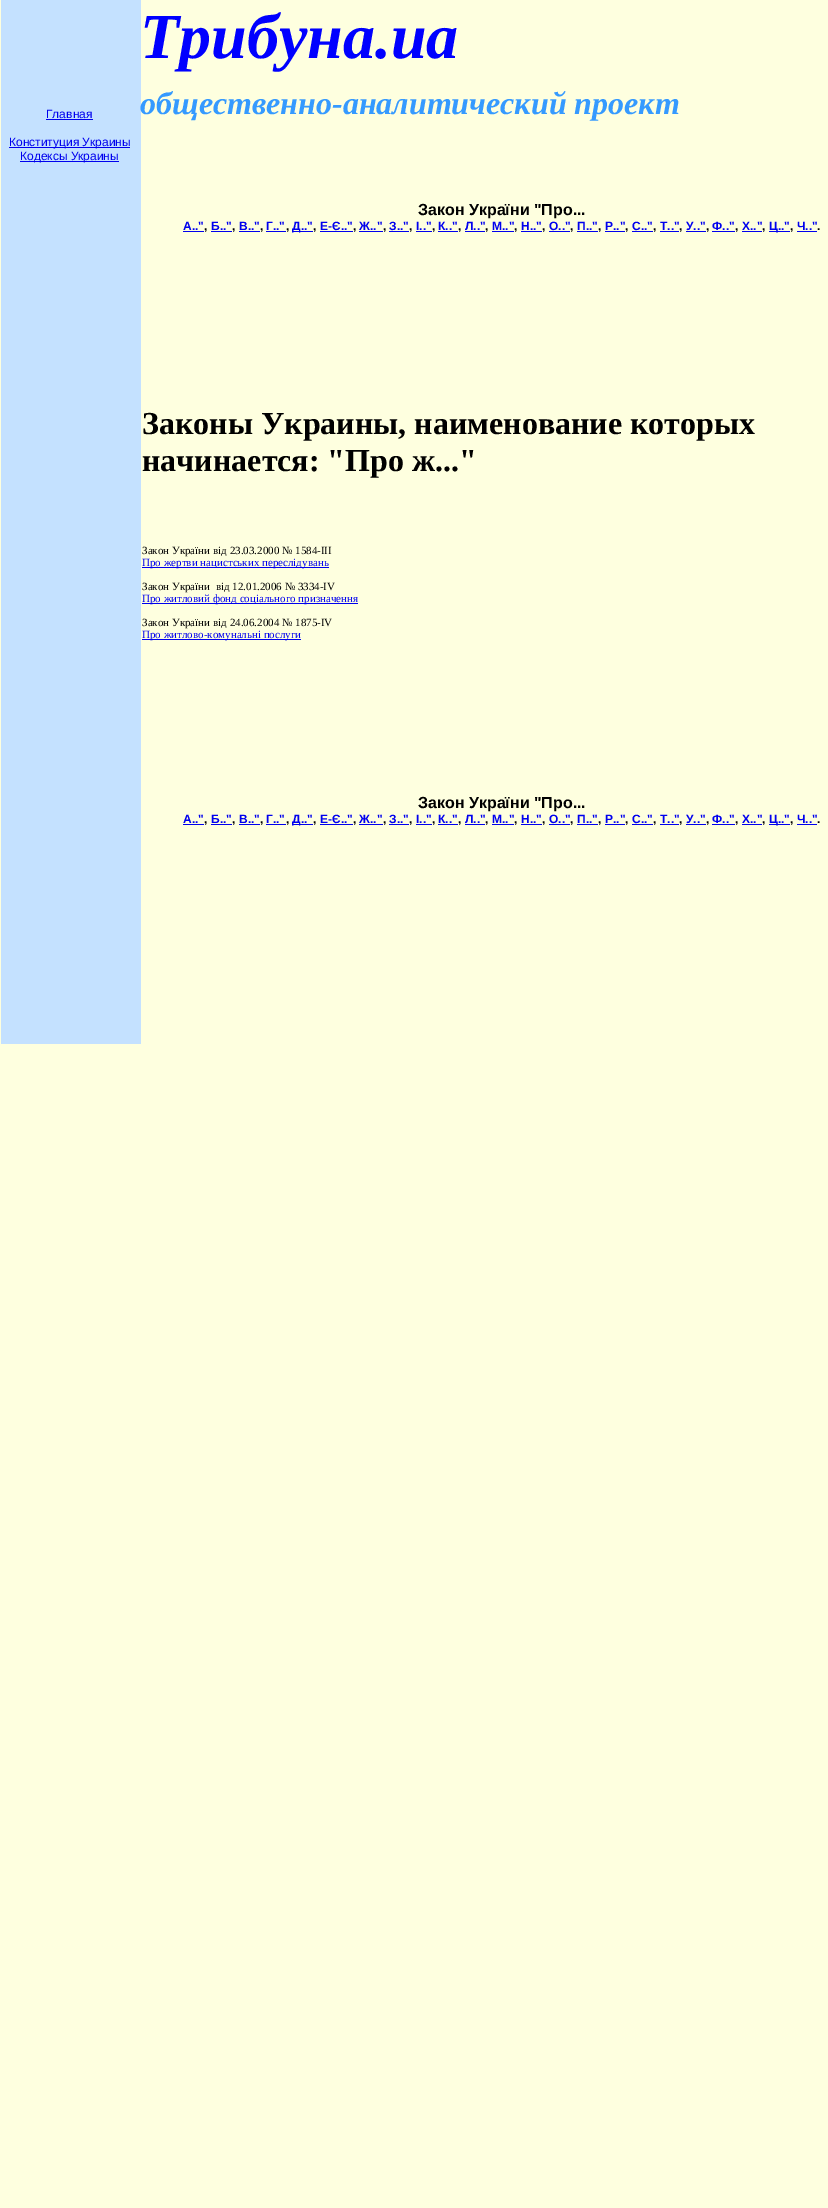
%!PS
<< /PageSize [828 2208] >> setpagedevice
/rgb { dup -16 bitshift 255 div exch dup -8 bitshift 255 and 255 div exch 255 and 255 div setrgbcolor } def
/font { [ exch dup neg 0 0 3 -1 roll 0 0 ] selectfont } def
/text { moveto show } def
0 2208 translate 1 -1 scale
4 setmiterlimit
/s1 { /LiberationSerif-BoldItalic 64 font 16#0000FF rgb } def
/s2 { /LiberationSerif-BoldItalic 32 font 16#359AFF rgb } def
/s3 { /LiberationSans-Regular 12 font 16#0000EE rgb } def
/s4 { /LiberationSans-Bold 16 font 16#000000 rgb } def
/s5 { /LiberationSans-Bold 12 font 16#0000EE rgb } def
/s6 { /LiberationSans-Bold 12 font 16#000000 rgb } def
/s7 { /LiberationSerif-Bold 32 font 16#000000 rgb } def
/s8 { /LiberationSerif-Regular 11 font 16#000000 rgb } def
/s9 { /LiberationSerif-Regular 11 font 16#0000EE rgb } def
16#FEFFDF rgb
0 0 828 2208 rectfill
16#C4E1FF rgb
1 0 140 1044 rectfill
s1
(Трибуна.ua) 140 58 text
s2
(общественно-аналитический проект) 140 114 text
s3
(Главная) 46 118 text
46 119 47 1 rectfill
9 147 121 1 rectfill
(Конституция Украины) 9 146 text
20 161 99 1 rectfill
(Кодексы Украины) 20 160 text
s4
(Закон України "Про...) 418 215 text
s5
(А..") 183 230 text
s6
(,) 204 230 text
16#0000EE rgb
183 231 21 1 rectfill
(Б..") 211 230 text
s6
(,) 232 230 text
16#0000EE rgb
211 231 21 1 rectfill
(В..") 239 230 text
s6
(,) 260 230 text
16#0000EE rgb
239 231 21 1 rectfill
(Г..") 266 230 text
s6
(,) 286 230 text
16#0000EE rgb
266 231 20 1 rectfill
292 231 21 1 rectfill
(Д..") 292 230 text
s6
(,) 313 230 text
s5
(Е-Є..") 320 230 text
s6
(,) 353 230 text
16#0000EE rgb
320 231 33 1 rectfill
(Ж..") 359 230 text
s6
(,) 383 230 text
16#0000EE rgb
359 231 24 1 rectfill
(З..") 389 230 text
s6
(,) 409 230 text
16#0000EE rgb
389 231 20 1 rectfill
(І..") 416 230 text
s6
(,) 432 230 text
16#0000EE rgb
416 231 16 1 rectfill
(К..") 438 230 text
s6
(,) 458 230 text
16#0000EE rgb
438 231 20 1 rectfill
(Л..") 465 230 text
s6
(,) 485 230 text
16#0000EE rgb
465 231 20 1 rectfill
(М..") 492 230 text
s6
(,) 514 230 text
16#0000EE rgb
492 231 22 1 rectfill
(Н..") 521 230 text
s6
(,) 542 230 text
16#0000EE rgb
521 231 21 1 rectfill
(О..") 549 230 text
s6
(,) 570 230 text
16#0000EE rgb
549 231 21 1 rectfill
(П..") 577 230 text
s6
(,) 598 230 text
16#0000EE rgb
577 231 21 1 rectfill
(Р..") 605 230 text
s6
(,) 625 230 text
16#0000EE rgb
605 231 20 1 rectfill
(С..") 632 230 text
s6
(,) 653 230 text
16#0000EE rgb
632 231 21 1 rectfill
(Т..") 660 230 text
s6
(,) 679 230 text
16#0000EE rgb
660 231 19 1 rectfill
(У..") 686 230 text
s6
(,) 706 230 text
16#0000EE rgb
686 231 20 1 rectfill
(Ф..") 712 230 text
s6
(,) 735 230 text
16#0000EE rgb
712 231 23 1 rectfill
(Х..") 742 230 text
s6
(,) 762 230 text
16#0000EE rgb
742 231 20 1 rectfill
769 231 21 1 rectfill
(Ц..") 769 230 text
s6
(,) 790 230 text
s5
(Ч..") 797 230 text
s6
(.) 817 230 text
16#0000EE rgb
797 231 20 1 rectfill
s7
(Законы Украины, наименование которых) 142 434 text
(начинается: "Про ж...") 142 471 text
s8
(Закон України вiд 23.03.2000 № 1584-III) 142 554 text
16#0000EE rgb
142 567 187 1 rectfill
(Про жертви нацистських переслідувань) 142 566 text
s8
(Закон України  вiд 12.01.2006 № 3334-IV) 142 590 text
16#0000EE rgb
142 603 216 1 rectfill
(Про житловий фонд соціального призначення) 142 602 text
s8
(Закон України вiд 24.06.2004 № 1875-IV) 142 626 text
16#0000EE rgb
142 639 159 1 rectfill
(Про житлово-комунальні послуги) 142 638 text
s4
(Закон України "Про...) 418 808 text
s5
(А..") 183 823 text
s6
(,) 204 823 text
16#0000EE rgb
183 824 21 1 rectfill
(Б..") 211 823 text
s6
(,) 232 823 text
16#0000EE rgb
211 824 21 1 rectfill
(В..") 239 823 text
s6
(,) 260 823 text
16#0000EE rgb
239 824 21 1 rectfill
(Г..") 266 823 text
s6
(,) 286 823 text
16#0000EE rgb
266 824 20 1 rectfill
292 824 21 1 rectfill
(Д..") 292 823 text
s6
(,) 313 823 text
s5
(Е-Є..") 320 823 text
s6
(,) 353 823 text
16#0000EE rgb
320 824 33 1 rectfill
(Ж..") 359 823 text
s6
(,) 383 823 text
16#0000EE rgb
359 824 24 1 rectfill
(З..") 389 823 text
s6
(,) 409 823 text
16#0000EE rgb
389 824 20 1 rectfill
(І..") 416 823 text
s6
(,) 432 823 text
16#0000EE rgb
416 824 16 1 rectfill
(К..") 438 823 text
s6
(,) 458 823 text
16#0000EE rgb
438 824 20 1 rectfill
(Л..") 465 823 text
s6
(,) 485 823 text
16#0000EE rgb
465 824 20 1 rectfill
(М..") 492 823 text
s6
(,) 514 823 text
16#0000EE rgb
492 824 22 1 rectfill
(Н..") 521 823 text
s6
(,) 542 823 text
16#0000EE rgb
521 824 21 1 rectfill
(О..") 549 823 text
s6
(,) 570 823 text
16#0000EE rgb
549 824 21 1 rectfill
(П..") 577 823 text
s6
(,) 598 823 text
16#0000EE rgb
577 824 21 1 rectfill
(Р..") 605 823 text
s6
(,) 625 823 text
16#0000EE rgb
605 824 20 1 rectfill
(С..") 632 823 text
s6
(,) 653 823 text
16#0000EE rgb
632 824 21 1 rectfill
(Т..") 660 823 text
s6
(,) 679 823 text
16#0000EE rgb
660 824 19 1 rectfill
(У..") 686 823 text
s6
(,) 706 823 text
16#0000EE rgb
686 824 20 1 rectfill
(Ф..") 712 823 text
s6
(,) 735 823 text
16#0000EE rgb
712 824 23 1 rectfill
(Х..") 742 823 text
s6
(,) 762 823 text
16#0000EE rgb
742 824 20 1 rectfill
769 824 21 1 rectfill
(Ц..") 769 823 text
s6
(,) 790 823 text
s5
(Ч..") 797 823 text
s6
(.) 817 823 text
16#0000EE rgb
797 824 20 1 rectfill
showpage
